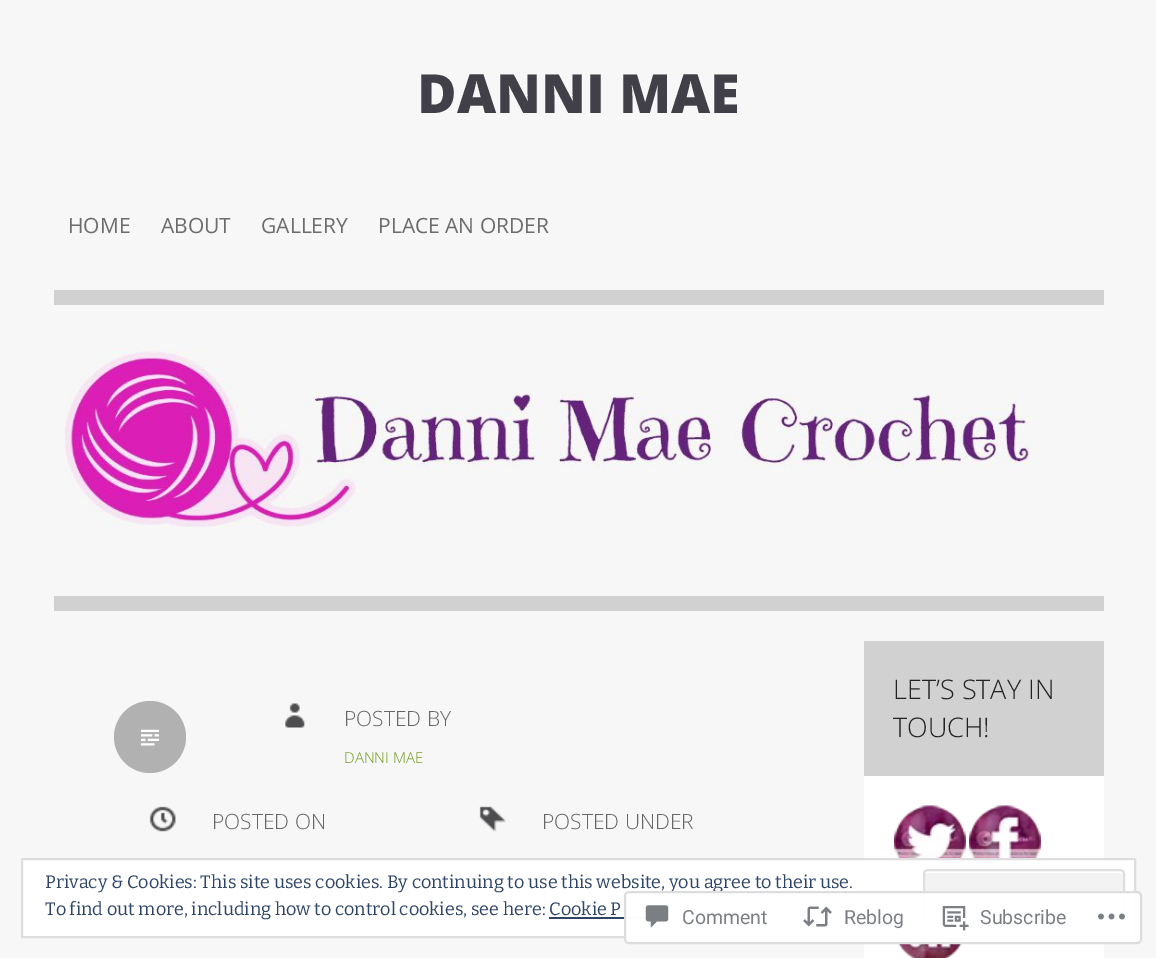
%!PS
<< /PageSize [1156 958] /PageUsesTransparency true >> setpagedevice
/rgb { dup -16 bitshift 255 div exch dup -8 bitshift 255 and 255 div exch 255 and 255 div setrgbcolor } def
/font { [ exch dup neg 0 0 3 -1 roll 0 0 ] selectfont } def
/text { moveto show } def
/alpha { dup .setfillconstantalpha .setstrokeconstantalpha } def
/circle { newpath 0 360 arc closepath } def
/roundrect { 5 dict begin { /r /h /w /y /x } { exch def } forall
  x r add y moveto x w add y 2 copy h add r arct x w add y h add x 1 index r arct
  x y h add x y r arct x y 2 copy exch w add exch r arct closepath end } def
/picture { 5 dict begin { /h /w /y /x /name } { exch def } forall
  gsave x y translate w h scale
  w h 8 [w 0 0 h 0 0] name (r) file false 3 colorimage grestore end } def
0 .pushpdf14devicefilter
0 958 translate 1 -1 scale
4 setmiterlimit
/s1 { /OpenSans-ExtraBold 54 font 16#414048 rgb } def
/s2 { /OpenSans-Regular 21 font 16#6C6C6C rgb } def
/s3 { /OpenSans-Light 21 font 16#666666 rgb } def
/s4 { /OpenSans-Light 15 font 16#759B22 rgb } def
/s5 { /OpenSans-Light 27 font 16#222222 rgb } def
/s6 { /Bitter-Regular 18 font 16#2E4467 rgb } def
/s7 { /Roboto-Regular 19.5 font 16#7B7F85 rgb } def
16#F7F7F7 rgb
0 0 1156 958 rectfill
16#D1D1D1 rgb
54 290 1050 15 rectfill
s1
(DANNI MAE) 417 113 text
s2
(HOME) 68 233 text
(ABOUT) 161 233 text
(GALLERY) 261 233 text
(PLACE AN ORDER) 378 233 text
16#D1D1D1 rgb
54 596 1050 15 rectfill
(pic1.raw) 64 349 967 178 picture
16#B1B1B1 rgb
150 737 36 circle fill
(pic2.raw) 141 729 18 17 picture
(pic3.raw) 285 703 20 25 picture
s3
(POSTED BY) 344 726 text
s4
(DANNI MAE) 344 763 text
(pic4.raw) 149 806 27 26 picture
s3
(POSTED ON) 212 829 text
(pic5.raw) 479 806 27 26 picture
(POSTED UNDER) 542 829 text
16#FFFFFF rgb
864 776 240 182 rectfill
16#D1D1D1 rgb
864 641 240 135 rectfill
s5
(LET’S STAY IN) 893 699 text
(TOUCH!) 893 737 text
(pic6.raw) 894 805 72 53 picture
(pic7.raw) 969 805 72 53 picture
(pic8.raw) 894 938 72 20 picture
16#FFFFFF rgb
22 859 moveto 1135 859 lineto 1135 937 lineto 22 937 lineto closepath gsave fill grestore
16#DEDEDE rgb
2 setlinewidth
stroke
s6
(Privacy & Cookies: This site uses cookies. By continuing to use this website, you agree to their use.) 45 888 text
16#F3F3F3 rgb
923 869 202 58 5 roundrect fill
16#FFFFFF rgb
927 873 moveto 1120 873 lineto 1122 873 1124 874 1124 876 curveto 1124 873 lineto 1124 871 1123 870 1121 870 curveto 927 870 lineto 925 870 924 871 924 873 curveto 924 876 lineto 924 874 925 873 927 873 curveto closepath fill
16#DEDEDE rgb
924 870 200 56 4 roundrect stroke
s6
(To find out more, including how to control cookies, see here: Cookie P) 45 915 text
549 917 113 2 rectfill
0.98 alpha
16#FFFFFF rgb
624 891 518 53 5 roundrect fill
16#DCDCDE rgb
625 892 516 51 4 roundrect stroke
1 alpha
(pic9.raw) 645 905 24 23 picture
s7
(Comment) 682 924 text
(pic10.raw) 803 906 29 21 picture
(Reblog) 844 924 text
(pic11.raw) 942 906 27 25 picture
(Subscribe) 980 924 text
(pic12.raw) 1098 913 27 7 picture
.poppdf14devicefilter showpage
